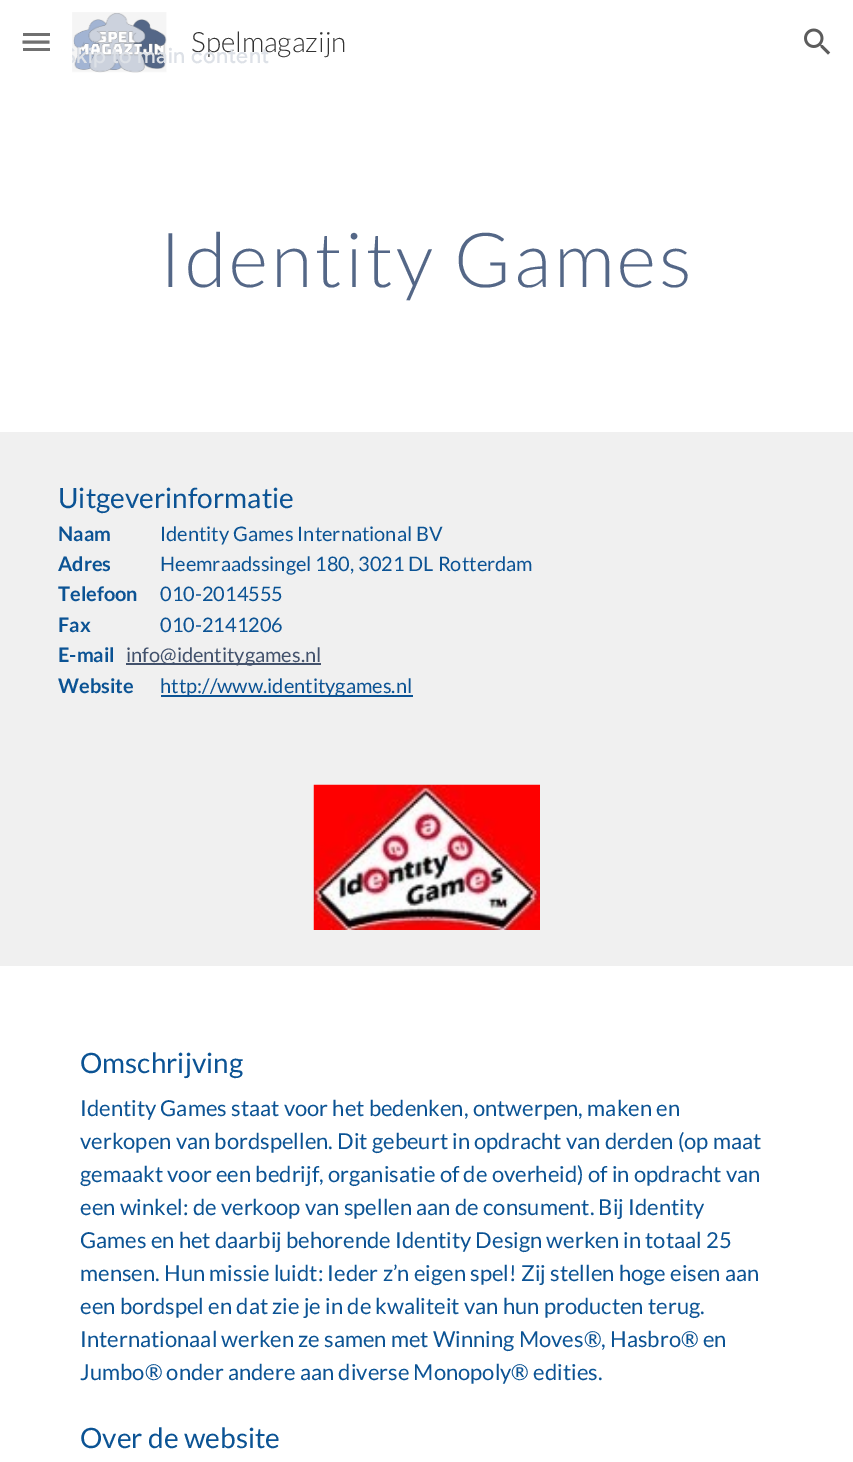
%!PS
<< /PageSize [853 1462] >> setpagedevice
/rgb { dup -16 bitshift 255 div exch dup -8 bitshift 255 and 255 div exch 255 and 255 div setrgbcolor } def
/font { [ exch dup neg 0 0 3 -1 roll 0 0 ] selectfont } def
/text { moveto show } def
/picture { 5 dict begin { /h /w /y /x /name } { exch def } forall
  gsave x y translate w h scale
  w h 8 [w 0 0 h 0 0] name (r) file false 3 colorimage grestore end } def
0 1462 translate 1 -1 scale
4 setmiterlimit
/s1 { /Lato-Light 28 font 16#333333 rgb } def
/s2 { /Lato-Regular 28 font 16#0B5394 rgb } def
/s3 { /Lato-Bold 20 font 16#0B5394 rgb } def
/s4 { /Lato-Regular 20 font 16#0B5394 rgb } def
/s5 { /Lato-Regular 20 font 16#43526C rgb } def
/s6 { /Lato-Regular 22 font 16#0B5394 rgb } def
16#FFFFFF rgb
0 0 853 1462 rectfill
(pic1.raw) 72 12 95 61 picture
s1
(Spelmagazijn) 191 52 text
/GoogleSans-Medium 21 font
16#DDE1E7 rgb
64 63 moveto 0.25 0 (Skip to main content) ashow
16#FFFFFF rgb
64 47 8 17 rectfill
16#707070 rgb
23 33 27 3 rectfill
3 setlinewidth
22.5 42 moveto 49.5 42 lineto stroke
23 48 27 3 rectfill
(pic2.raw) 804 28 27 27 picture
/Lato-Light 76 font
16#546787 rgb
159 287 moveto 3 0 (Identity Games) ashow
16#F0F0F0 rgb
0 432 853 534 rectfill
s2
(Uitgeverinformatie) 58 508 text
s3
(Naam) 58 541 text
s4
(Identity Games International BV) 160 541 text
s3
(Adres) 58 571 text
s4
(Heemraadssingel 180, 3021 DL Rotterdam) 160 571 text
s3
(Telefoon) 58 601 text
s4
(010-2014555) 160 601 text
s3
(Fax) 58 632 text
s4
(010-2141206) 160 632 text
s3
(E-mail) 58 662 text
16#43526C rgb
126 663 195 2 rectfill
s5
(info@identitygames.nl) 126 662 text
s3
(Website) 58 693 text
161 695 252 2 rectfill
s4
(http://www.identitygames.nl) 160 693 text
(pic3.raw) 313 784 227 146 picture
s2
(Omschrijving) 80 1073 text
s6
(Identity Games staat voor het bedenken, ontwerpen, maken en) 80 1116 text
(verkopen van bordspellen. Dit gebeurt in opdracht van derden \(op maat) 80 1149 text
(gemaakt voor een bedrijf, organisatie of de overheid\) of in opdracht van) 80 1182 text
(een winkel: de verkoop van spellen aan de consument. Bij Identity) 80 1215 text
(Games en het daarbij behorende Identity Design werken in totaal 25) 80 1248 text
(mensen. Hun missie luidt: Ieder z’n eigen spel! Zij stellen hoge eisen aan) 80 1281 text
(een bordspel en dat zie je in de kwaliteit van hun producten terug.) 80 1314 text
(Internationaal werken ze samen met Winning Moves®, Hasbro® en) 80 1347 text
(Jumbo® onder andere aan diverse Monopoly® edities.) 80 1380 text
s2
(Over de website) 80 1448 text
showpage
